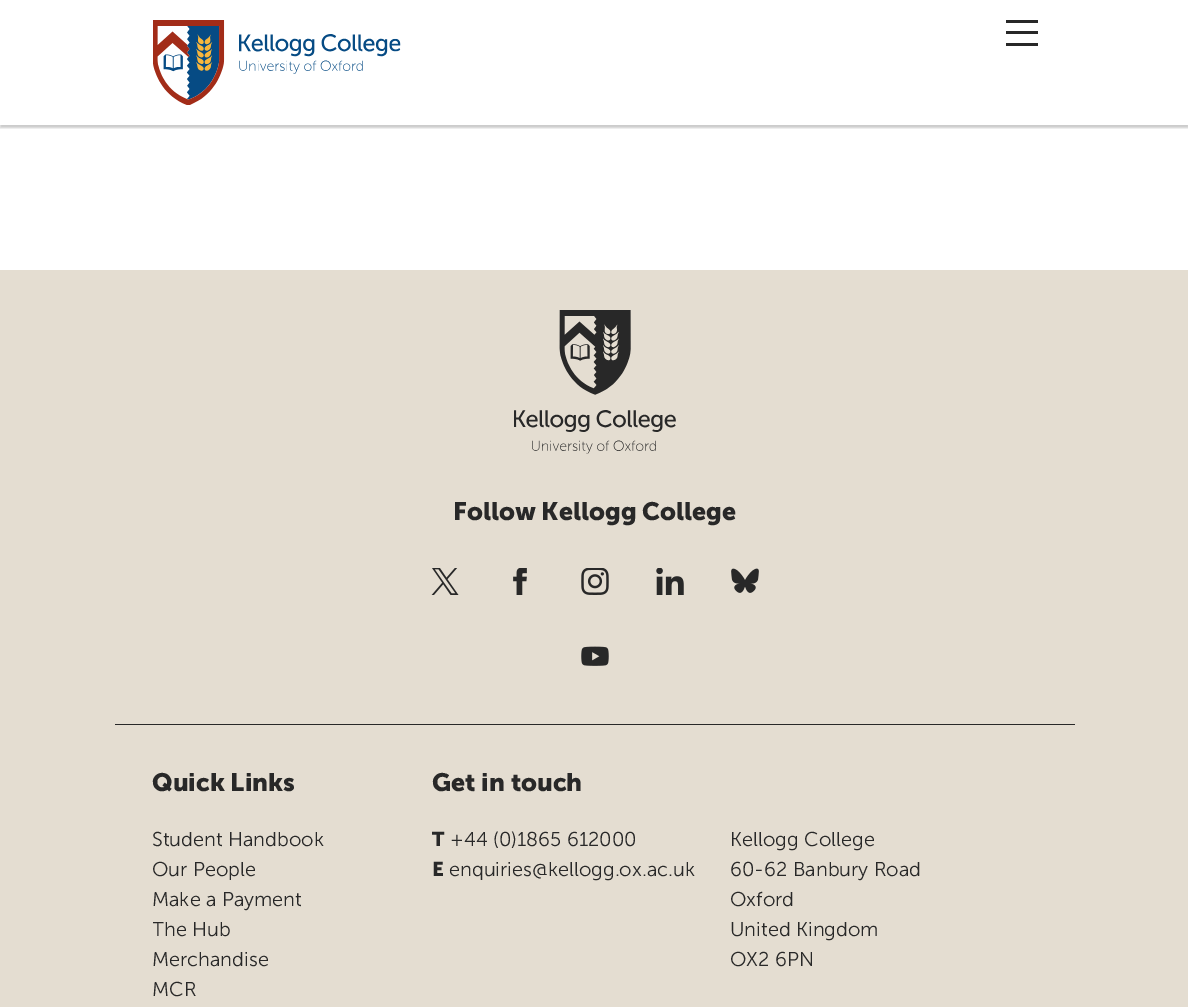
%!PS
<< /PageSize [1188 1007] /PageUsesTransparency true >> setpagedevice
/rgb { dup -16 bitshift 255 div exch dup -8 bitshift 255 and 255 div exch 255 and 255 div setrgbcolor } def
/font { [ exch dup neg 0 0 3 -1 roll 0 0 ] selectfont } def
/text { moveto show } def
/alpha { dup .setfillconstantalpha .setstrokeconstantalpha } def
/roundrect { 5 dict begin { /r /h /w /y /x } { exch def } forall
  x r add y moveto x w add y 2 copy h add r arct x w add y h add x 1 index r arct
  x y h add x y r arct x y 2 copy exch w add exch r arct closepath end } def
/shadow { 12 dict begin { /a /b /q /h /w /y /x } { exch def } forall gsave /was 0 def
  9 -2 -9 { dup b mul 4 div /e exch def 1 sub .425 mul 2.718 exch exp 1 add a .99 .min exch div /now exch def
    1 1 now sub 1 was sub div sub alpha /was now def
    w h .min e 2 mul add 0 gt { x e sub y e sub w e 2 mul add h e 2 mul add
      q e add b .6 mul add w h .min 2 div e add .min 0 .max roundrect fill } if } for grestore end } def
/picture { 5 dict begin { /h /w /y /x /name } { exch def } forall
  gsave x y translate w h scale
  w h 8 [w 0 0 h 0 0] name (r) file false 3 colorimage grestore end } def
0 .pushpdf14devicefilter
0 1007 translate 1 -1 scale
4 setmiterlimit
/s1 { /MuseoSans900-Bold 25 font 16#282828 rgb } def
/s2 { /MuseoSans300-Light 20 font 16#282828 rgb } def
/s3 { /MuseoSans900-Bold 20 font 16#282828 rgb } def
16#FFFFFF rgb
0 0 1188 1007 rectfill
gsave
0 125 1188 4 rectclip
16#000000 rgb
0 3 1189 125 0 1 0.2 shadow
grestore
(pic1.raw) 153 20 248 85 picture
16#282828 rgb
1006 20 32 3 rectfill
1006 31 32 3 rectfill
1006 43 32 3 rectfill
16#E4DDD1 rgb
0 270 1188 737 rectfill
16#282828 rgb
115 724 960 1 rectfill
(pic2.raw) 514 310 162 144 picture
s1
(Follow Kellogg College) 453 520 text
(pic3.raw) 431 568 28 27 picture
(pic4.raw) 513 568 14 27 picture
(pic5.raw) 581 568 28 27 picture
(pic6.raw) 656 568 28 27 picture
(pic7.raw) 731 568 28 25 picture
(pic8.raw) 581 646 28 20 picture
(Quick Links) 152 791 text
s2
(Student Handbook) 152 846 text
(Our People) 152 876 text
(Make a Payment) 152 906 text
gsave
153 915 77 30 rectclip
(The Hub) 152 936 text
grestore
(Merchandise) 152 966 text
(MCR) 152 996 text
s1
(Get in touch) 432 791 text
s3
(T) 432 846 text
s2
(+44 \(0\)1865 612000) 450 846 text
s3
(E) 432 876 text
s2
(enquiries@kellogg.ox.ac.uk) 449 876 text
(Kellogg College) 730 846 text
(60-62 Banbury Road) 730 876 text
(Oxford) 730 906 text
(United Kingdom) 730 936 text
(OX2 6PN) 730 966 text
.poppdf14devicefilter showpage
